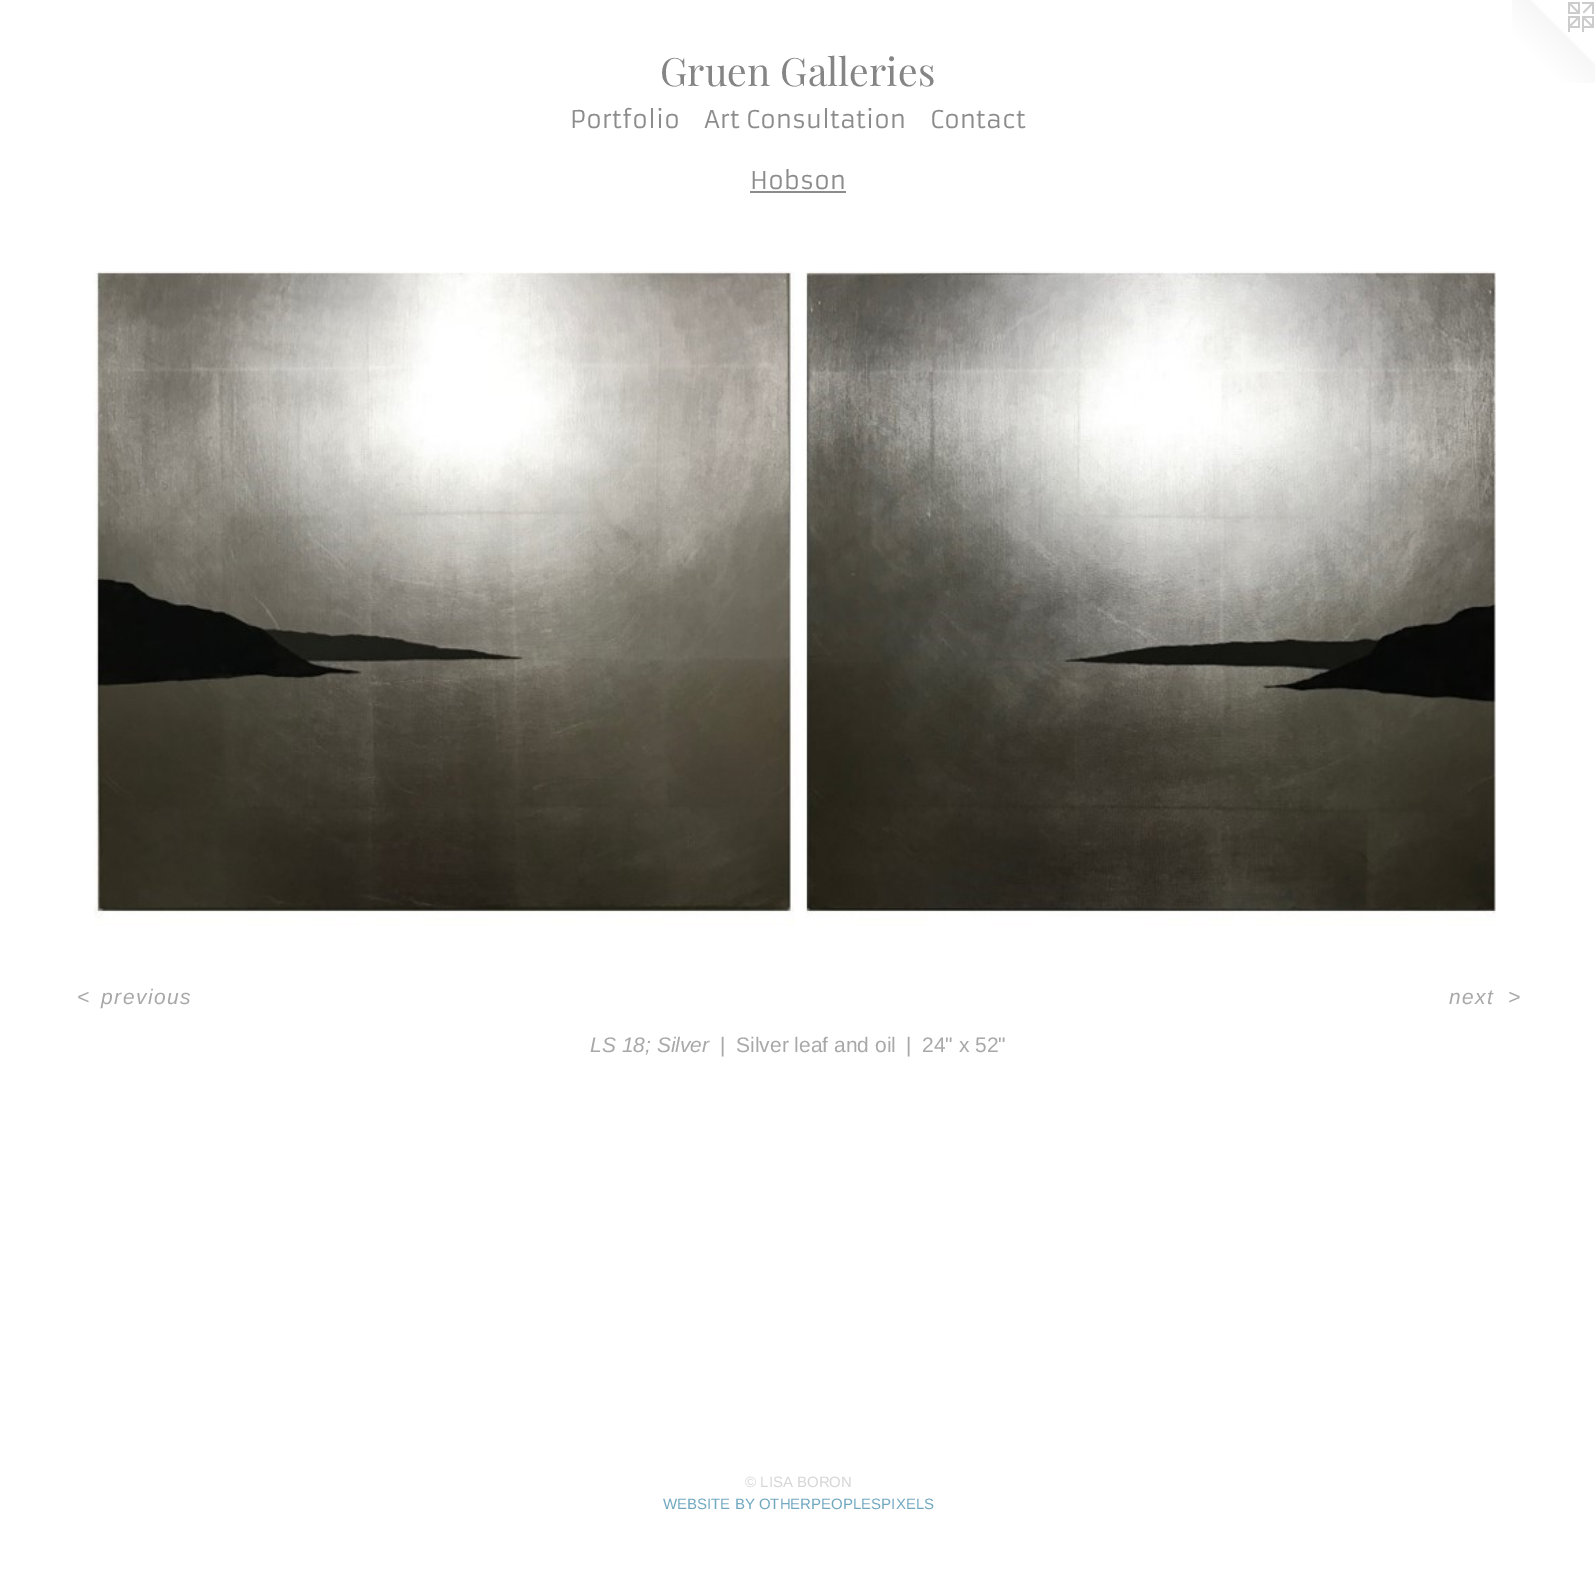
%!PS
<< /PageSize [1595 1590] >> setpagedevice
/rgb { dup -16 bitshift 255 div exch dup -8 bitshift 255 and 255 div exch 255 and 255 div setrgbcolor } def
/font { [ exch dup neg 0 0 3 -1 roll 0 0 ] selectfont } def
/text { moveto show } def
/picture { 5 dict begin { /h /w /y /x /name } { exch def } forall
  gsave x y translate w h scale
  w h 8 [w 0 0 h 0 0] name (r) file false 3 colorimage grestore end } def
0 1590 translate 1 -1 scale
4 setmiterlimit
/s1 { /PlayfairDisplay-Regular 39 font 16#858585 rgb } def
/s2 { /Armata-Regular 24 font 16#8C8C8C rgb } def
/s3 { /LiberationSans-Italic 21 font 16#A8A8A8 rgb } def
/s4 { /LiberationSans-Regular 21 font 16#A8A8A8 rgb } def
/s5 { /LiberationSans-Regular 15 font 16#D6D6D6 rgb } def
/s6 { /LiberationSans-Regular 15 font 16#70A8C0 rgb } def
16#FFFFFF rgb
0 0 1595 1590 rectfill
s1
(Gruen Galleries) 660 86 text
(pic1.raw) 1512 0 83 83 picture
s2
(Portfolio) 570 128 text
(Art Consultation) 704 128 text
(Contact) 930 128 text
(Hobson) 750 189 text
750 191 96 2 rectfill
(pic2.raw) 94 271 1402 655 picture
/LiberationSans-Italic 21 font
16#A8A8A8 rgb
77 1004 moveto 1.5 0 (<) ashow
101 1004 moveto 1.5 0 (previous) ashow
1449 1004 moveto 1.5 0 (next) ashow
1508 1004 moveto 1.5 0 (>) ashow
(LS 18; Silver) 590 1052 text
s4
(|) 720 1052 text
(Silver leaf and oil) 736 1052 text
(|) 906 1052 text
(24" x 52") 922 1052 text
s5
(© LISA BORON) 745 1487 text
s6
(WEBSITE BY OTHERPEOPLESPIXELS) 663 1509 text
showpage
